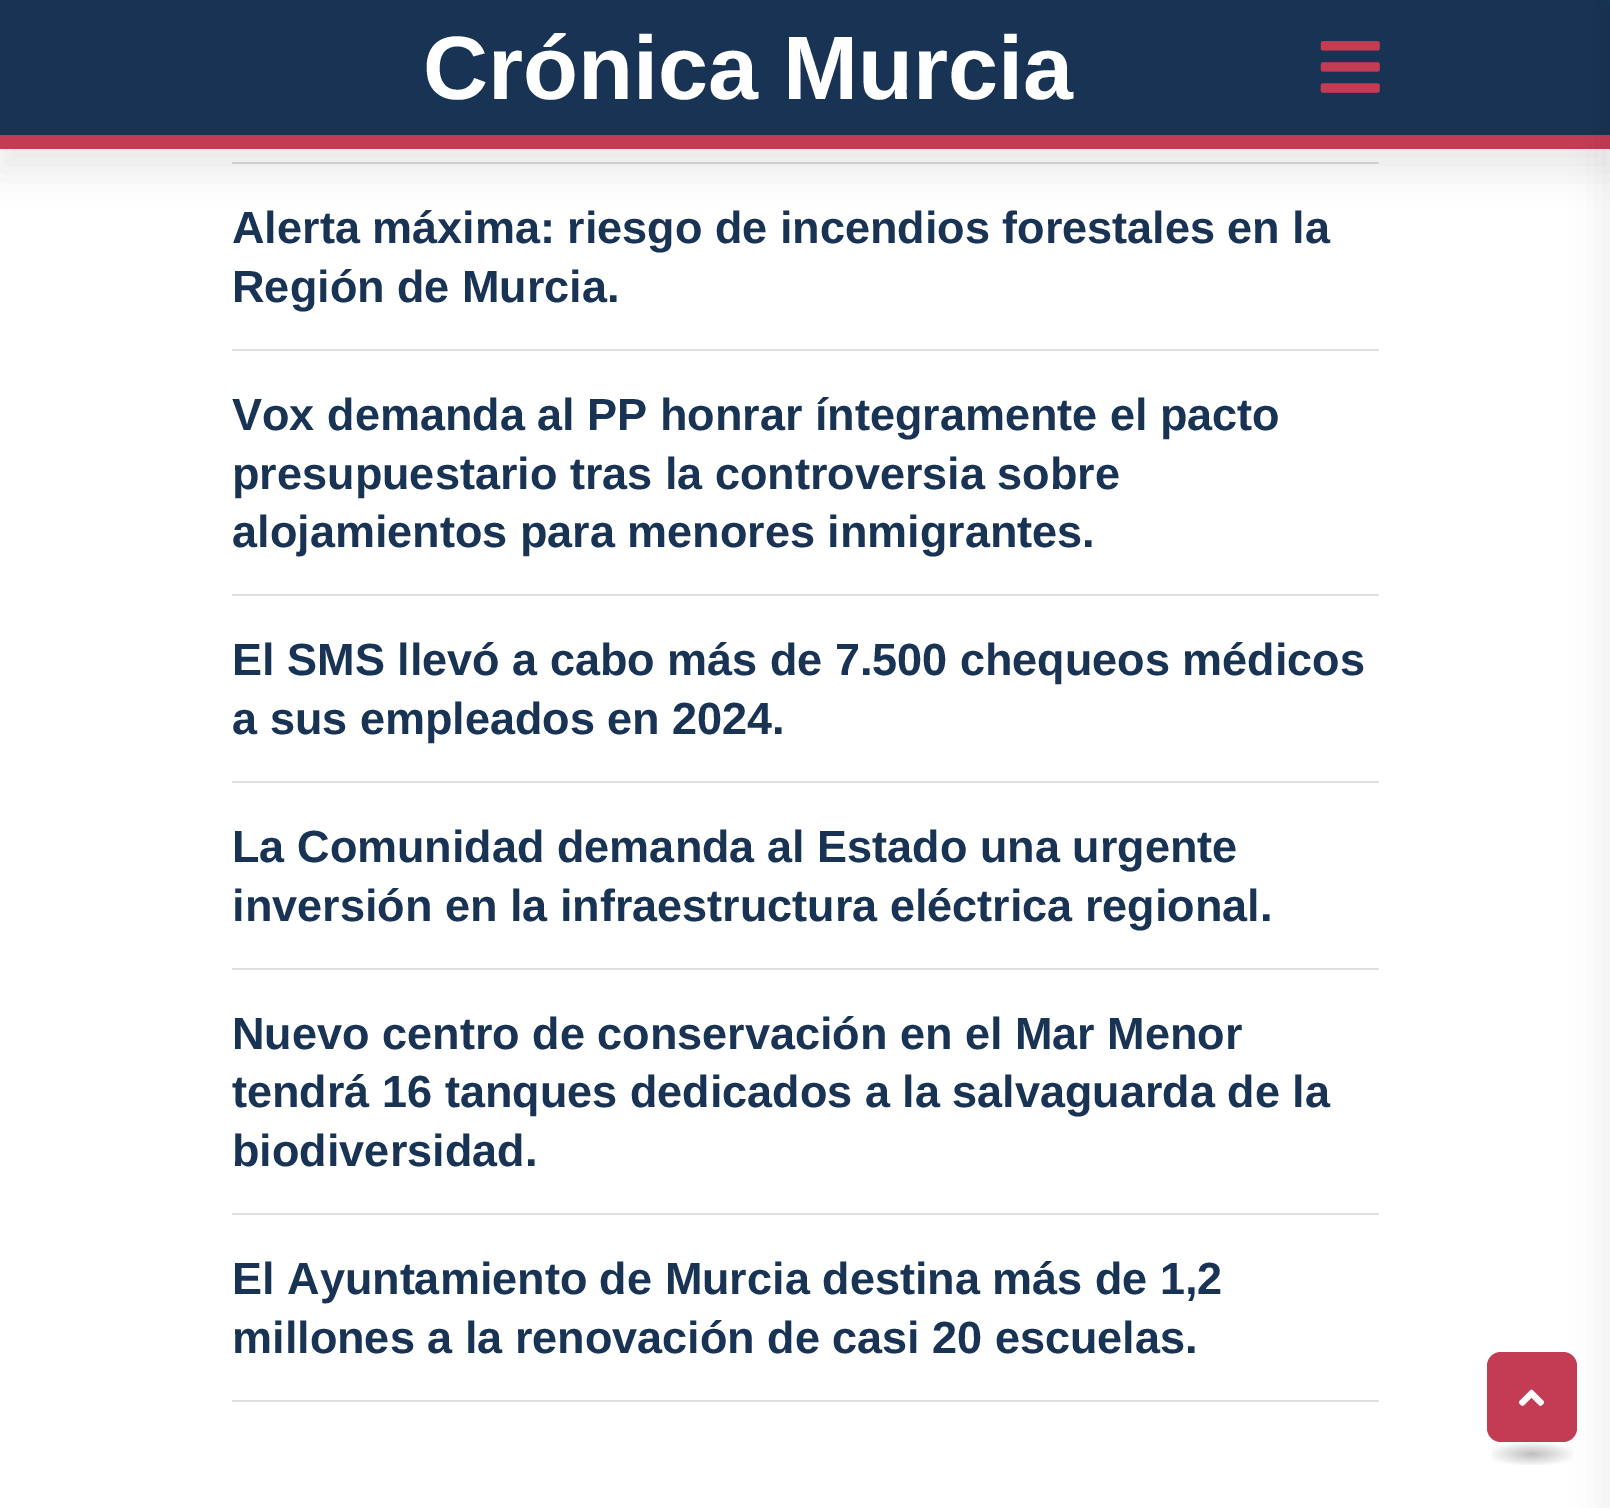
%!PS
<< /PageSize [1610 1508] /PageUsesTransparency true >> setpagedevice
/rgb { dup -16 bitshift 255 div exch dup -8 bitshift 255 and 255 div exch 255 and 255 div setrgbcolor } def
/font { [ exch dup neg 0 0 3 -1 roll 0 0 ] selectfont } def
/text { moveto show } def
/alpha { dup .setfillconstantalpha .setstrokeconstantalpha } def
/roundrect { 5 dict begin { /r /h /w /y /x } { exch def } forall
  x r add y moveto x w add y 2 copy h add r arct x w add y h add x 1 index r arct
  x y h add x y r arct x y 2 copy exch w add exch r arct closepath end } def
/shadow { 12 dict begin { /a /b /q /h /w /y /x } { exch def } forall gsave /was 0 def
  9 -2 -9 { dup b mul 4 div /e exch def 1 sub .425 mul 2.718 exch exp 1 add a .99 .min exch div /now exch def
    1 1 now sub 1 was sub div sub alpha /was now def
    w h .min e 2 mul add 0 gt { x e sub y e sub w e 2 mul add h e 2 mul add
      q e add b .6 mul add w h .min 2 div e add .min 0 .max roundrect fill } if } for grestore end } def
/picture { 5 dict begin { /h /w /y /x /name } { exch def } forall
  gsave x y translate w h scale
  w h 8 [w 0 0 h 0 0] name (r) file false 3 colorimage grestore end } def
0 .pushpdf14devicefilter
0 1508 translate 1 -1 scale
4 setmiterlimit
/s1 { /LiberationSans-Bold 90 font 16#FFFFFF rgb } def
/s2 { /LiberationSans-Bold 45 font 16#183354 rgb } def
16#FFFFFF rgb
0 0 1610 1508 rectfill
16#DFDFDF rgb
232 162 1147 2 rectfill
16#191919 rgb
0 23 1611 148 0 17 0.1 shadow
16#183354 rgb
0 0 1610 135 rectfill
16#C33C54 rgb
0 135 1610 14 rectfill
s1
(Crónica Murcia) 423 99 text
(pic1.raw) 1320 41 60 52 picture
16#C33C54 rgb
1487 1352 90 90 14 roundrect fill
gsave 1492 1442 moveto 1573 1442 lineto 1573 1465 lineto 1492 1465 lineto closepath clip newpath 1532 1454 translate 57 16 scale
<< /ShadingType 3 /ColorSpace /DeviceRGB /Coords [0 0 0 0 0 1] /Extend [true true] /Function << /FunctionType 3 /Domain [0 1] /Functions [<< /FunctionType 2 /Domain [0 1] /C0 [0.749 0.749 0.749] /C1 [1 1 1] /N 1 >> << /FunctionType 2 /Domain [0 1] /C0 [1 1 1] /C1 [1 1 1] /N 1 >>] /Bounds [0.8] /Encode [0 1 0 1] >> >> shfill grestore
16#000000 rgb
1598 0 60 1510 0 16 0.06 shadow
16#DFDFDF rgb
232 349 1147 2 rectfill
s2
(Alerta máxima: riesgo de incendios forestales en la) 232 243 text
(Región de Murcia.) 232 302 text
16#DFDFDF rgb
232 594 1147 2 rectfill
s2
(Vox demanda al PP honrar íntegramente el pacto) 232 430 text
(presupuestario tras la controversia sobre) 232 489 text
(alojamientos para menores inmigrantes.) 232 547 text
16#DFDFDF rgb
232 781 1147 2 rectfill
s2
(El SMS llevó a cabo más de 7.500 chequeos médicos) 232 675 text
(a sus empleados en 2024.) 232 734 text
16#DFDFDF rgb
232 968 1147 2 rectfill
s2
(La Comunidad demanda al Estado una urgente) 232 862 text
(inversión en la infraestructura eléctrica regional.) 232 921 text
16#DFDFDF rgb
232 1213 1147 2 rectfill
s2
(Nuevo centro de conservación en el Mar Menor) 232 1049 text
(tendrá 16 tanques dedicados a la salvaguarda de la) 232 1107 text
(biodiversidad.) 232 1166 text
16#DFDFDF rgb
232 1400 1147 2 rectfill
s2
(El Ayuntamiento de Murcia destina más de 1,2) 232 1294 text
(millones a la renovación de casi 20 escuelas.) 232 1353 text
(pic2.raw) 1518 1389 27 17 picture
.poppdf14devicefilter showpage
